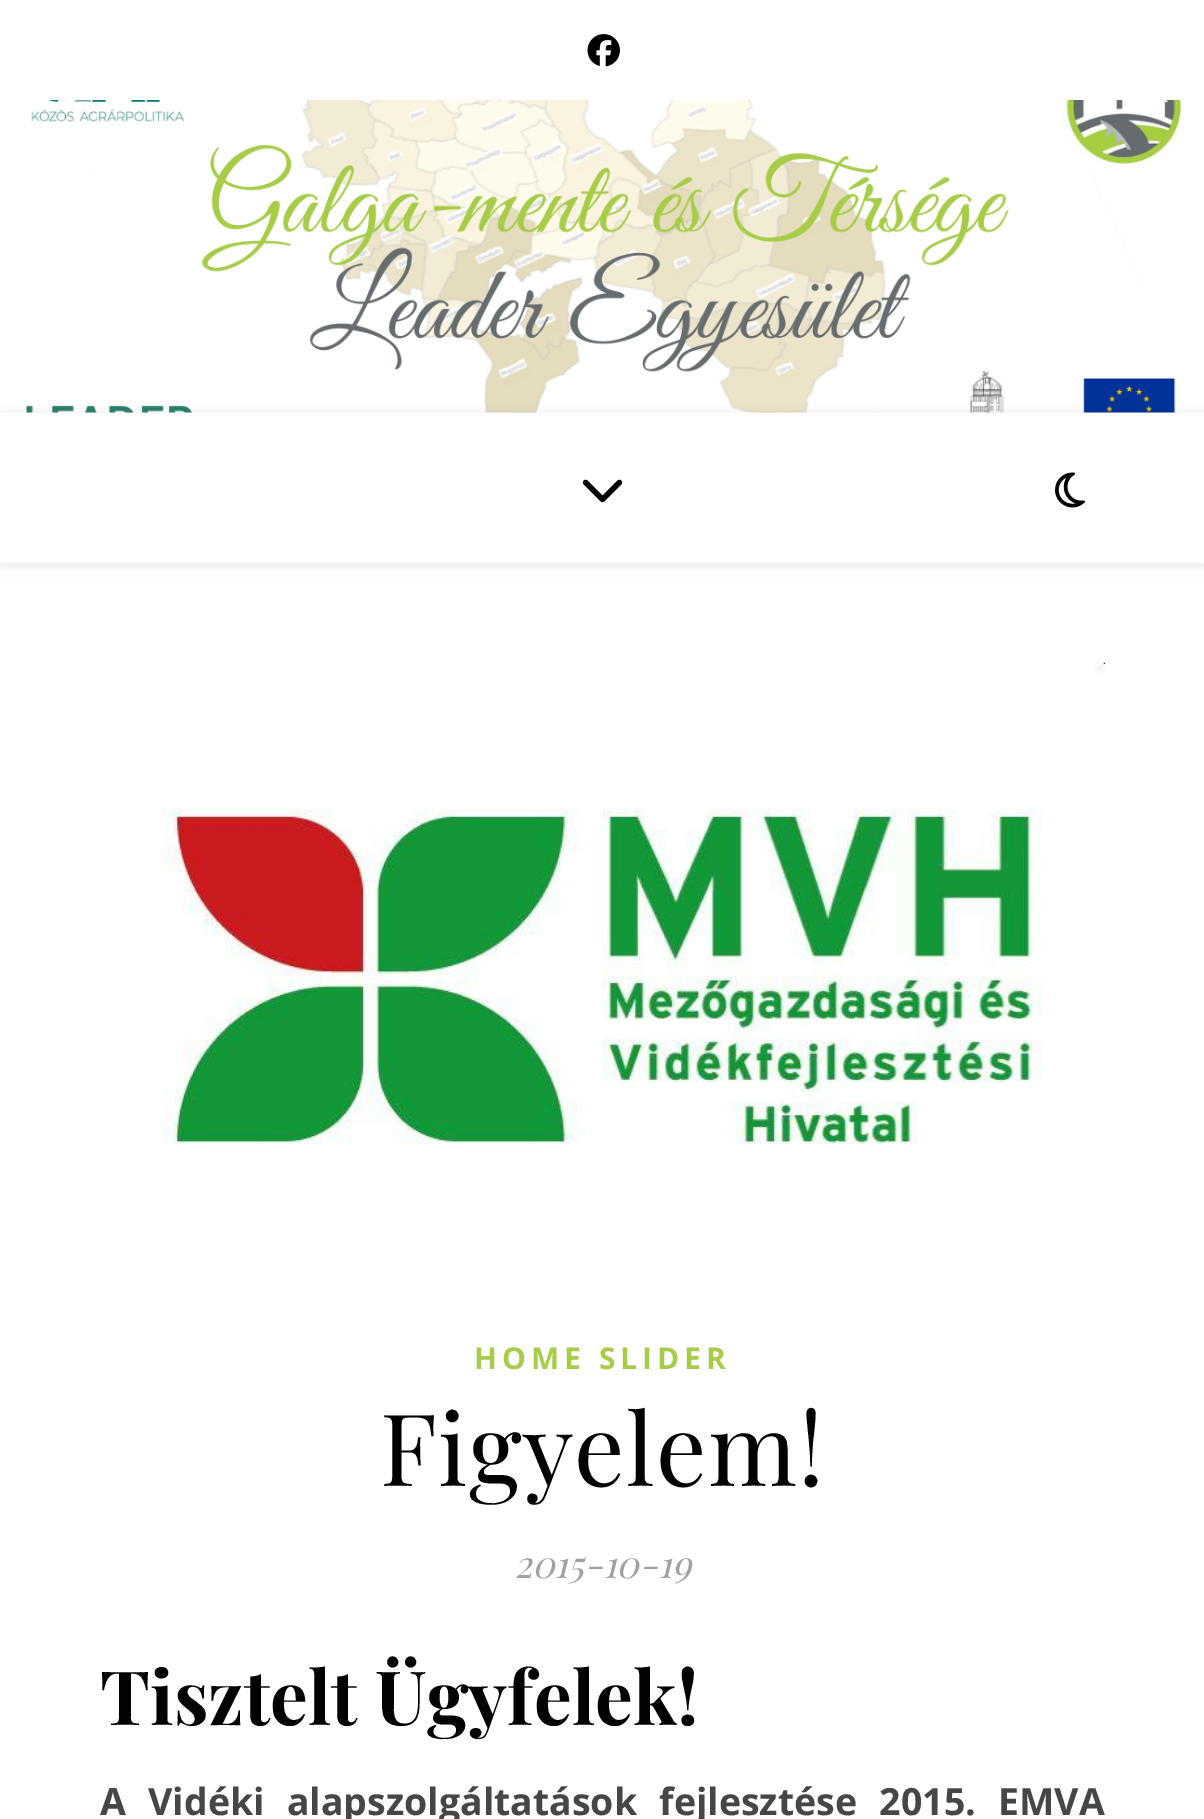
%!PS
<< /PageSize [1204 1819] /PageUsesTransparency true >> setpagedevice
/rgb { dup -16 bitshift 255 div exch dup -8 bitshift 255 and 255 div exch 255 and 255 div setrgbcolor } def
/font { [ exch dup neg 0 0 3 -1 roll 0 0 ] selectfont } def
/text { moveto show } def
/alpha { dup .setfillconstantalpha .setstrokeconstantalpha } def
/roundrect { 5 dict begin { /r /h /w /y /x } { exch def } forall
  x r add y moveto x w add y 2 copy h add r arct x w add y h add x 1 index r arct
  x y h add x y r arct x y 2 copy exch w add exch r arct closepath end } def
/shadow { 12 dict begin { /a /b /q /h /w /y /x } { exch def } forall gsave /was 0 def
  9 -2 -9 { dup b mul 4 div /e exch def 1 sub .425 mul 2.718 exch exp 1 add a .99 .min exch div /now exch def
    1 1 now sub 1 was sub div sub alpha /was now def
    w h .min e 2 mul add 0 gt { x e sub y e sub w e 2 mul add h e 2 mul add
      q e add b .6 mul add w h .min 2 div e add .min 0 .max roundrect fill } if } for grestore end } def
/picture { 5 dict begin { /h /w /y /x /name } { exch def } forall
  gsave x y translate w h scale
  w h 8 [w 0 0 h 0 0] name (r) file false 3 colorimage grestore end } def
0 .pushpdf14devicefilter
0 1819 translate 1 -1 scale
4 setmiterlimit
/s1 { /PlayfairDisplay-Italic 37.5 font 16#A1A1A1 rgb } def
/s2 { /PlayfairDisplay-Bold 75 font 16#030303 rgb } def
/s3 { /NotoSans-Bold 37.5 font 16#464646 rgb } def
16#FFFFFF rgb
0 0 1204 1819 rectfill
(pic1.raw) 587 34 33 33 picture
(pic2.raw) 26 100 1157 313 picture
16#000000 rgb
0 415 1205 150 0 6 0.1 shadow
16#FFFFFF rgb
0 413 1204 150 rectfill
(pic3.raw) 582 479 41 24 picture
(pic4.raw) 1055 472 30 36 picture
(pic5.raw) 162 662 943 483 picture
/OpenSans-Bold 30 font
16#A7CC48 rgb
474 1369 moveto 5 0 (HOME SLIDER) ashow
/PlayfairDisplay-Regular 100 font
16#030303 rgb
380 1486 moveto 1.25 0 (Figyelem!) ashow
s1
(2015-10-19) 514 1578 text
s2
(Tisztelt Ügyfelek!) 100 1725 text
s3
(A) 100 1815 text
/OpenSans-Bold 37.5 font
148 1815 moveto 12.5 0 32 (Vidéki alapszolgáltatások fejlesztése 2015. EMVA) widthshow
.poppdf14devicefilter showpage
